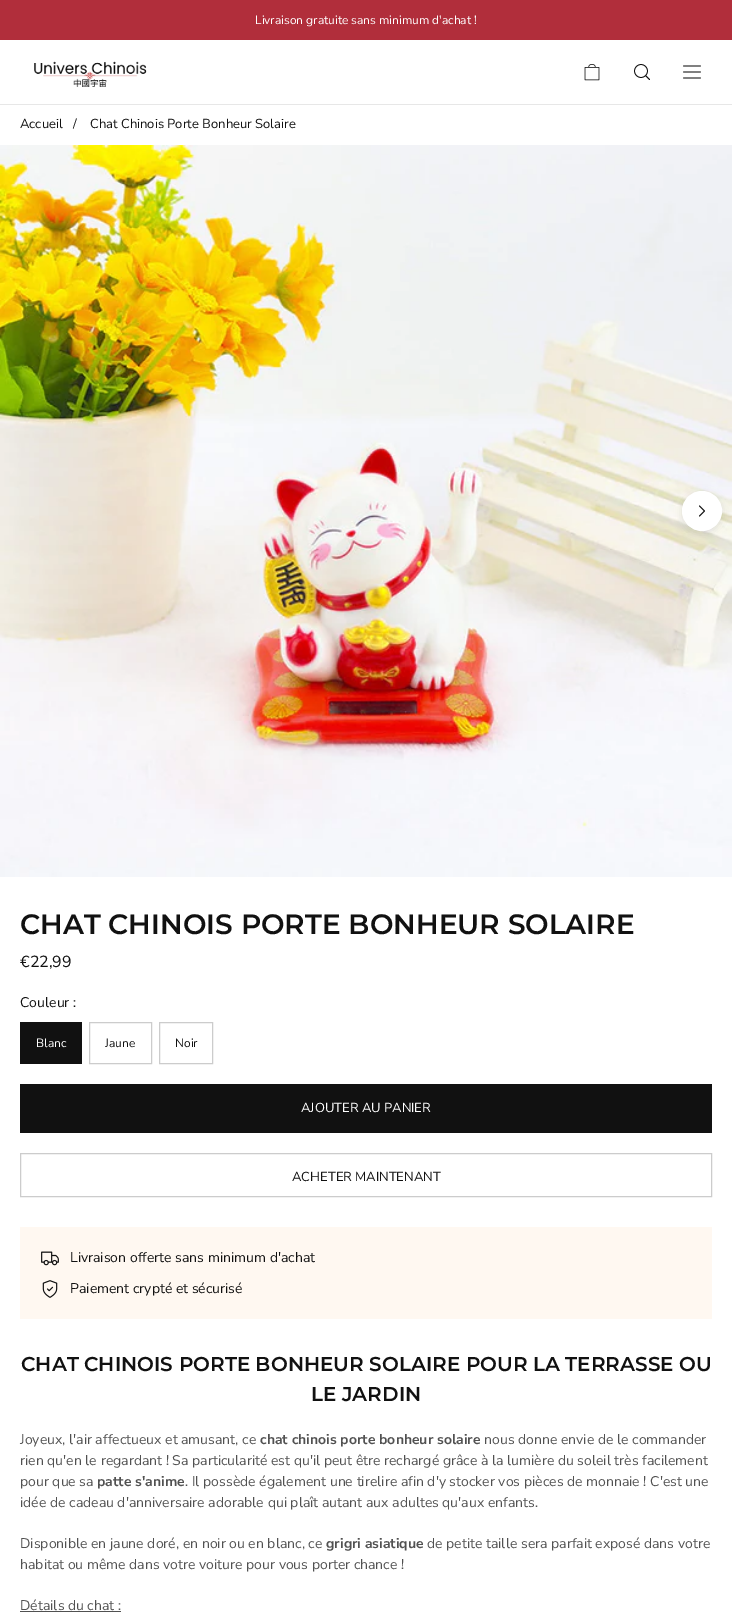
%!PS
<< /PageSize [732 1624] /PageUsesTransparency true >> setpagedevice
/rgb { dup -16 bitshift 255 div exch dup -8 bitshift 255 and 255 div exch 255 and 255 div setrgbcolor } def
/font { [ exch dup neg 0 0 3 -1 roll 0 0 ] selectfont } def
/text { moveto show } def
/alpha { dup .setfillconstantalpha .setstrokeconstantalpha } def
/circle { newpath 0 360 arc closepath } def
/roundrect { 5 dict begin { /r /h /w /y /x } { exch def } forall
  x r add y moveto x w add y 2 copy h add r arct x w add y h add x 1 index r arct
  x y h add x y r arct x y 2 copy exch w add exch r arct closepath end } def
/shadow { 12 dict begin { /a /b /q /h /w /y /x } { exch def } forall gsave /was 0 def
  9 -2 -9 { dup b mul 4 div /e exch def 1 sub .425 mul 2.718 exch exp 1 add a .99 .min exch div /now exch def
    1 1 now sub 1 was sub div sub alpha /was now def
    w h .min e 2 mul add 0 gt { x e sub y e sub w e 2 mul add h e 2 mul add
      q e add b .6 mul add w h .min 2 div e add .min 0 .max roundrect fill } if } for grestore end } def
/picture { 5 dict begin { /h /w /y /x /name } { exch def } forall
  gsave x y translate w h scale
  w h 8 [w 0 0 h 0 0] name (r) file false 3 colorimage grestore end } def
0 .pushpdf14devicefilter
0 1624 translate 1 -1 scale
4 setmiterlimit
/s1 { /NunitoSans-Regular 12 font 16#FFFFFF rgb } def
/s2 { /NunitoSans-Regular 13 font 16#111111 rgb } def
/s3 { /Montserrat-SemiBold 28 font 16#111111 rgb } def
/s4 { /NunitoSans-Regular 16 font 16#111111 rgb } def
/s5 { /NunitoSans-Regular 14 font 16#111111 rgb } def
/s6 { /NunitoSans-Regular 12 font 16#111111 rgb } def
/s7 { /NunitoSans-Regular 13 font 16#FFFFFF rgb } def
/s8 { /Montserrat-SemiBold 20 font 16#111111 rgb } def
/s9 { /NunitoSans-Regular 14 font 16#515151 rgb } def
/s10 { /NunitoSans-Bold 14 font 16#515151 rgb } def
16#FFFFFF rgb
0 0 732 1624 rectfill
16#B12E3B rgb
0 0 732 40 rectfill
s1
(Livraison gratuite sans minimum d'achat !) 255 24 text
16#E7E7E7 rgb
0 104 732 1 rectfill
(pic1.raw) 34 61 113 26 picture
(pic2.raw) 584 64 16 17 picture
16#111111 rgb
0.8 setlinewidth
641 71 6.5 circle stroke
1 setlinecap
1 setlinejoin
649.5 79.5 moveto 646 76 lineto stroke
683.5 66 moveto 700.5 66 lineto closepath 683.5 78 moveto 700.5 78 lineto closepath 683.5 72 moveto 700.5 72 lineto closepath stroke
s2
(Accueil) 20 128 text
(/) 73 128 text
(Chat Chinois Porte Bonheur Solaire) 90 128 text
(pic3.raw) 0 145 732 732 picture
16#000000 rgb
682 493 40 40 20 4 0.1 shadow
16#FFFFFF rgb
702 511 19.5 circle gsave fill grestore
1 setlinewidth
0 setlinecap
0 setlinejoin
stroke
16#111111 rgb
0.8 setlinewidth
1 setlinecap
1 setlinejoin
699.5 516 moveto 704.5 511 lineto 699.5 506 lineto stroke
s3
(CHAT CHINOIS PORTE BONHEUR SOLAIRE) 20 934 text
s4
(€22,99) 20 967 text
s5
(Couleur :) 20 1007 text
20 1022 62 42 rectfill
s1
(Blanc) 36 1047 text
16#CCCCCC rgb
1 setlinewidth
0 setlinecap
0 setlinejoin
89.5 1022.5 62 41 rectstroke
s6
(Jaune) 105 1047 text
16#CCCCCC rgb
159.5 1022.5 53 41 rectstroke
s6
(Noir) 175 1047 text
20 1084 692 49 rectfill
s7
(AJOUTER AU PANIER) 301 1112 text
16#CCCCCC rgb
20.5 1153.5 691 43 rectstroke
s2
(ACHETER MAINTENANT) 292 1181 text
16#FFF8F1 rgb
20 1227 692 92 rectfill
(pic4.raw) 41 1251 18 15 picture
s5
(Livraison offerte sans minimum d'achat) 70 1262 text
(pic5.raw) 42 1280 16 18 picture
(Paiement crypté et sécurisé) 70 1293 text
s8
(CHAT CHINOIS PORTE BONHEUR SOLAIRE POUR LA TERRASSE OU) 21 1371 text
(LE JARDIN) 311 1401 text
s9
(Joyeux, l'air affectueux et amusant, ce) 20 1444 text
s10
(chat chinois porte bonheur solaire) 260 1444 text
s9
(nous donne envie de le commander) 484 1444 text
(rien qu'en le regardant ! Sa particularité est qu'il peut être rechargé grâce à la lumière du soleil très facilement) 20 1465 text
(pour que sa) 20 1486 text
s10
(patte s'anime) 97 1486 text
s9
(. Il possède également une tirelire afin d'y stocker vos pièces de monnaie ! C'est une) 185 1486 text
(idée de cadeau d'anniversaire adorable qui plaît autant aux adultes qu'aux enfants.) 20 1507 text
(Disponible en jaune doré, en noir ou en blanc, ce) 20 1548 text
s10
(grigri asiatique) 326 1548 text
s9
(de petite taille sera parfait exposé dans votre) 427 1548 text
(habitat ou même dans votre voiture pour vous porter chance !) 20 1569 text
(Détails du chat :) 20 1610 text
20 1611 101 1 rectfill
.poppdf14devicefilter showpage
